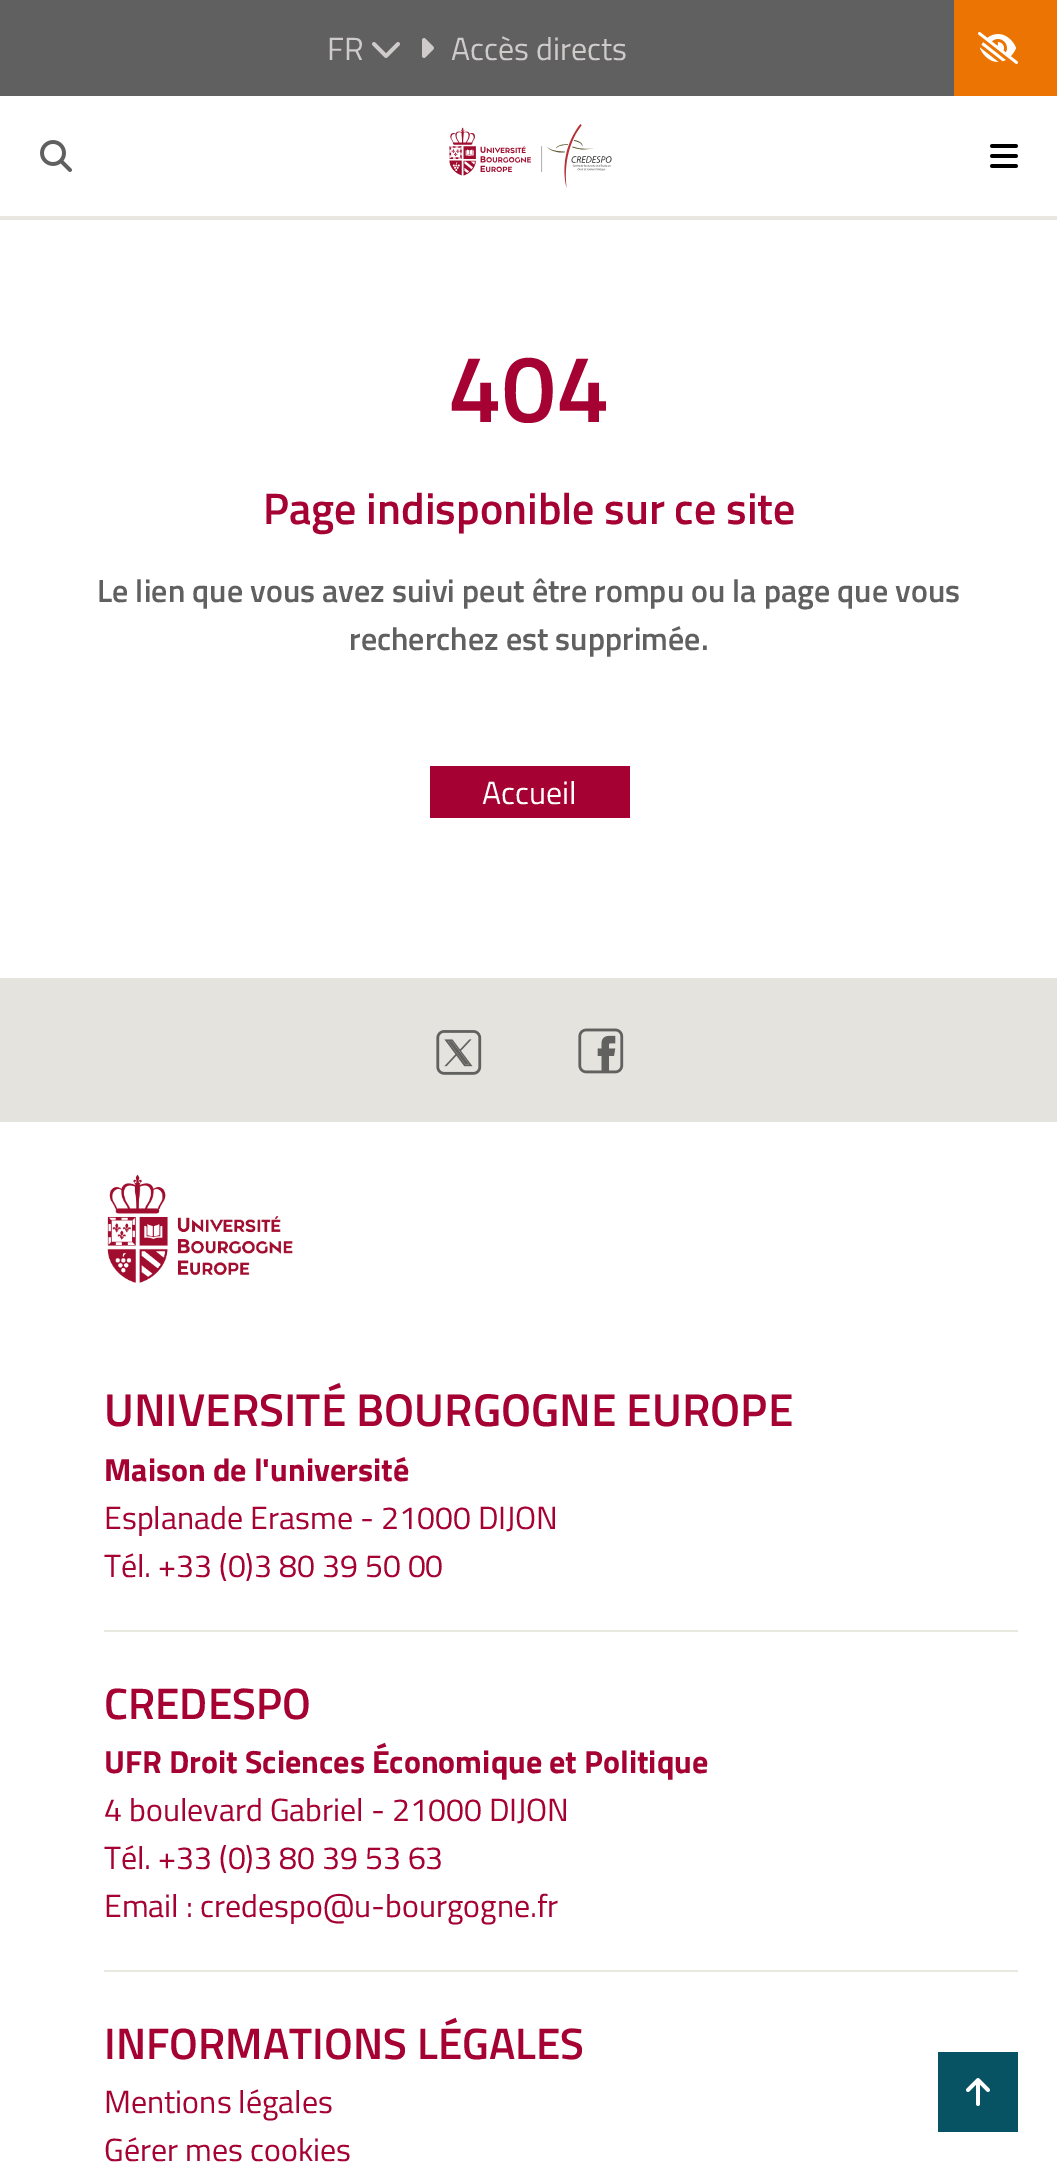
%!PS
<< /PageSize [1057 2172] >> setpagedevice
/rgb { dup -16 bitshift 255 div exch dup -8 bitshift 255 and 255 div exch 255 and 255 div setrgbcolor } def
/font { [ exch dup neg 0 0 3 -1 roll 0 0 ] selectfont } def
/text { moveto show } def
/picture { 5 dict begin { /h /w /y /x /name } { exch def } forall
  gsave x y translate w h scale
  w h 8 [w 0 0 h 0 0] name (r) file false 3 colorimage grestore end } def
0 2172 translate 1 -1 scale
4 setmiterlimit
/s1 { /TitilliumWeb-Regular 32 font 16#CFCBCB rgb } def
/s2 { /TitilliumWeb-SemiBold 96 font 16#A50133 rgb } def
/s3 { /TitilliumWeb-SemiBold 44 font 16#A50133 rgb } def
/s4 { /TitilliumWeb-SemiBold 32 font 16#606060 rgb } def
/s5 { /TitilliumWeb-Regular 32 font 16#FFFFFF rgb } def
/s6 { /TitilliumWeb-SemiBold 46 font 16#A50133 rgb } def
/s7 { /TitilliumWeb-Bold 32 font 16#A50133 rgb } def
/s8 { /TitilliumWeb-Regular 32 font 16#A50133 rgb } def
16#FFFFFF rgb
0 0 1057 2172 rectfill
16#606060 rgb
0 0 954 96 rectfill
s1
(FR) 327 60 text
(pic1.raw) 372 42 28 16 picture
(pic2.raw) 422 38 12 20 picture
(Accès directs) 451 60 text
16#EC7402 rgb
954 0 103 96 rectfill
(pic3.raw) 978 32 40 32 picture
16#E9E8E0 rgb
0 216 1057 4 rectfill
(pic4.raw) 40 140 32 32 picture
(pic5.raw) 449 124 163 64 picture
(pic6.raw) 990 144 28 24 picture
s2
(404) 448 422 text
s3
(Page indisponible sur ce site) 263 524 text
s4
(Le lien que vous avez suivi peut être rompu ou la page que vous) 97 602 text
(recherchez est supprimée.) 349 650 text
16#A50133 rgb
430 766 200 52 rectfill
s5
(Accueil) 482 804 text
16#E4E3DE rgb
0 978 1057 144 rectfill
(pic7.raw) 436 1030 46 45 picture
(pic8.raw) 578 1028 46 46 picture
(pic9.raw) 107 1174 186 109 picture
s6
(UNIVERSITÉ BOURGOGNE EUROPE) 104 1426 text
s7
(Maison de l'université) 104 1481 text
s8
(Esplanade Erasme - 21000 DIJON) 104 1529 text
(Tél. +33 \(0\)3 80 39 50 00) 104 1577 text
16#E9E8E0 rgb
104 1630 914 2 rectfill
s3
(CREDESPO) 104 1719 text
s7
(UFR Droit Sciences Économique et Politique) 104 1773 text
s8
(4 boulevard Gabriel - 21000 DIJON) 104 1821 text
(Tél. +33 \(0\)3 80 39 53 63) 104 1869 text
(Email : credespo@u-bourgogne.fr) 104 1917 text
16#E9E8E0 rgb
104 1970 914 2 rectfill
s3
(INFORMATIONS LÉGALES) 104 2059 text
s8
(Mentions légales) 104 2113 text
(Gérer mes cookies) 104 2161 text
16#075363 rgb
938 2052 80 80 rectfill
(pic10.raw) 966 2078 24 28 picture
showpage
